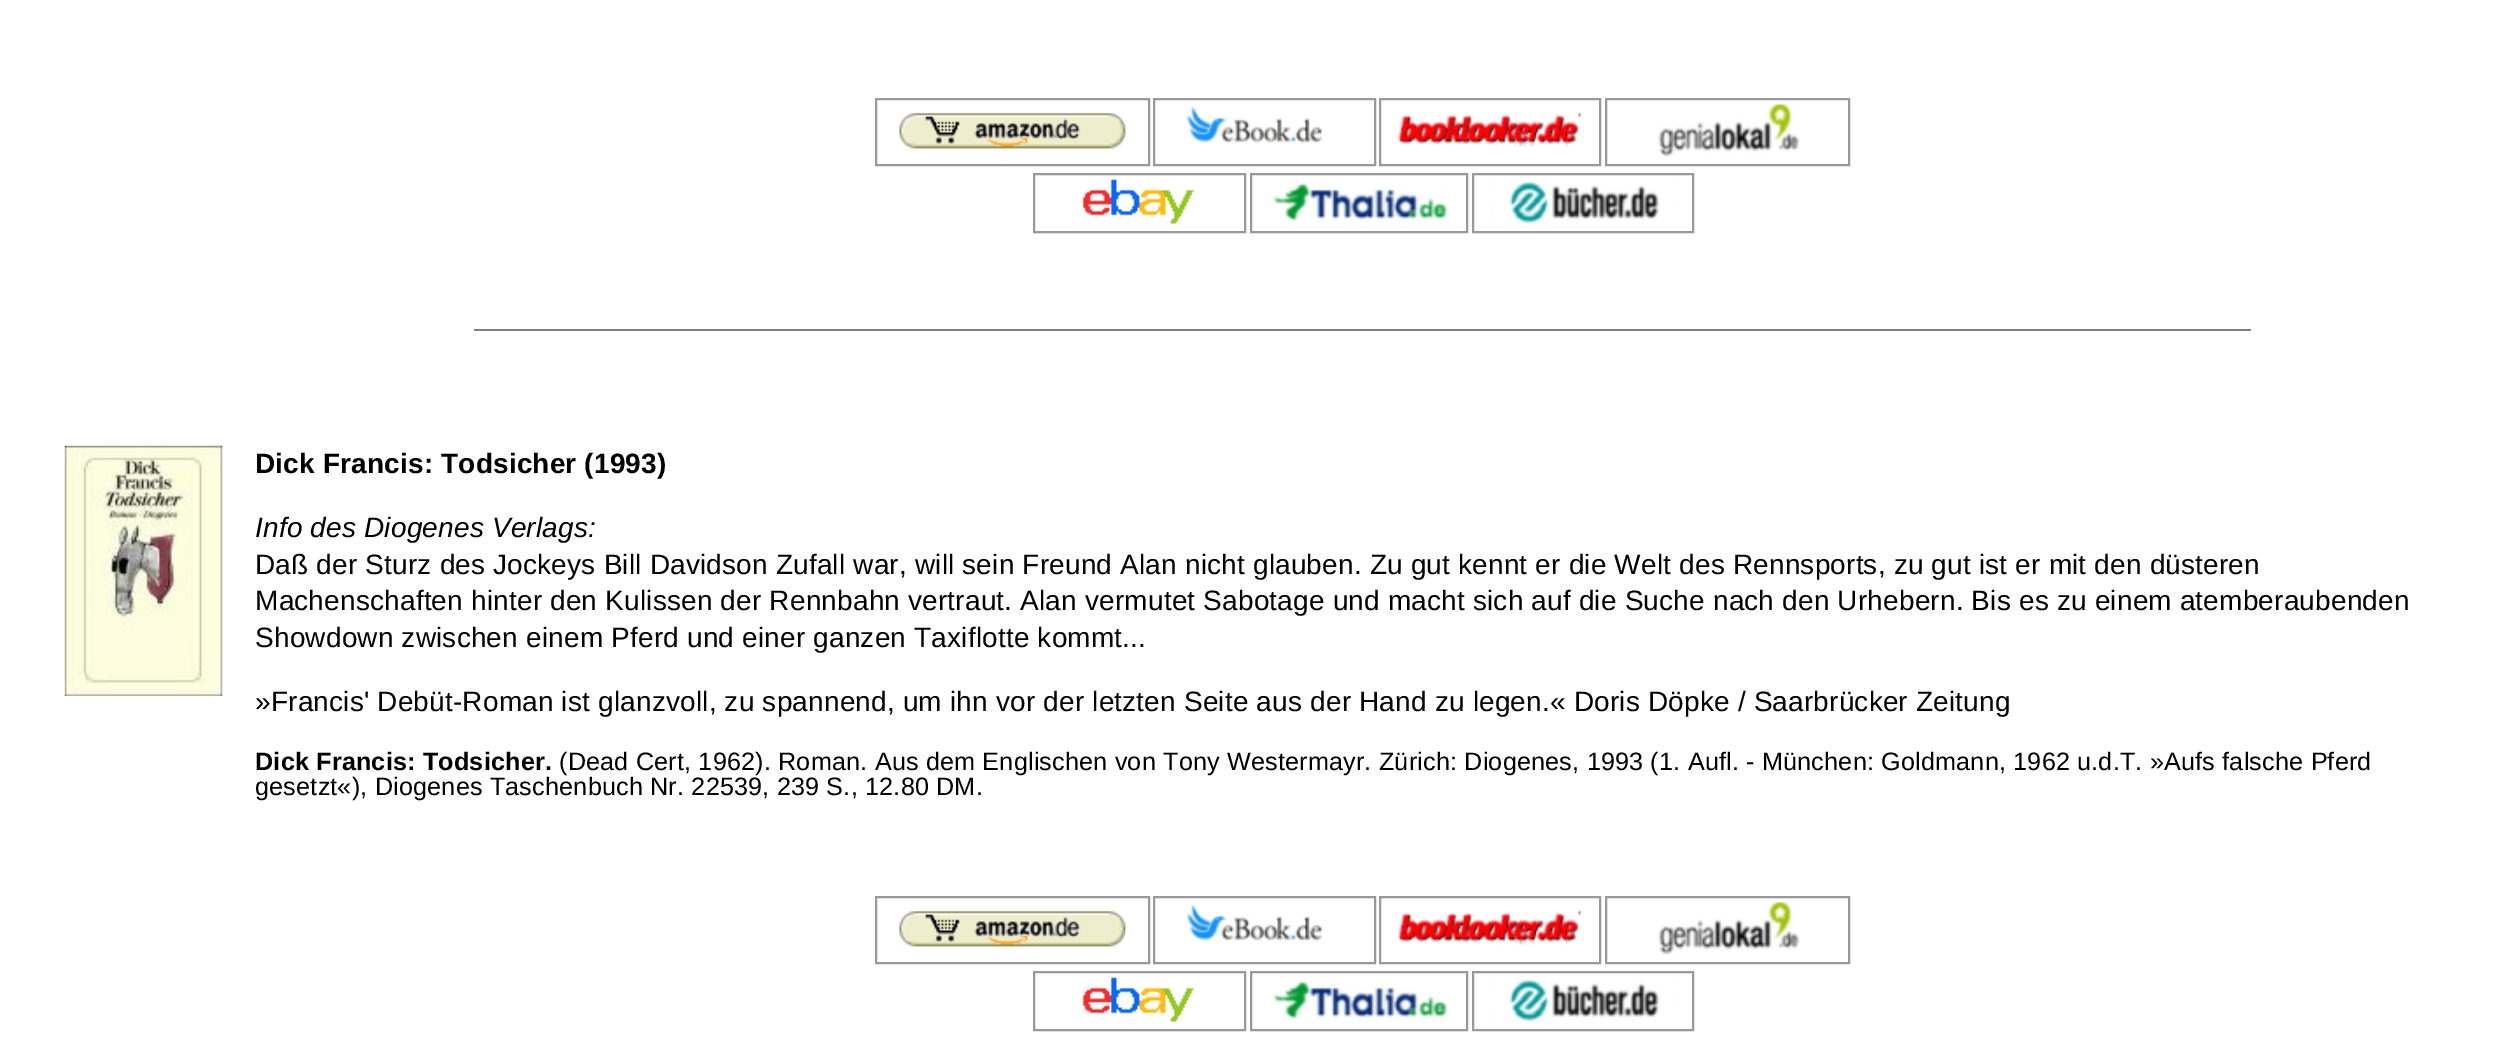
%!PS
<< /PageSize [2507 1062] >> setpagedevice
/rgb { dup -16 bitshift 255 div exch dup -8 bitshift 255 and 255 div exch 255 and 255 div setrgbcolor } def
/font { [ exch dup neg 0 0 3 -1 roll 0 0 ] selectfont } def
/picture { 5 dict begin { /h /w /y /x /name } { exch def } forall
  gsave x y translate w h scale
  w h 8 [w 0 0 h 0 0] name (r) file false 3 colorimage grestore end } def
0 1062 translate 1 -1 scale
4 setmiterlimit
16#FFFFFF rgb
0 0 2507 1062 rectfill
16#999999 rgb
2 setlinewidth
876 99 273 66 rectstroke
(pic1.raw) 899 112 227 37 picture
1154 99 221 66 rectstroke
(pic2.raw) 1186 106 136 38 picture
1380 99 220 66 rectstroke
(pic3.raw) 1398 112 184 35 picture
1606 99 243 66 rectstroke
(pic4.raw) 1658 104 142 53 picture
1034 174 211 58 rectstroke
(pic5.raw) 1082 179 112 45 picture
1251 174 216 58 rectstroke
(pic6.raw) 1272 182 176 40 picture
1473 174 220 58 rectstroke
(pic7.raw) 1491 178 184 49 picture
16#808080 rgb
474 329 1777 2 rectfill
(pic8.raw) 64 445 159 251 picture
/LiberationSans-Bold 28 font
16#000000 rgb
255 473 moveto 0.18 0 (Dick Francis: Todsicher \(1993\)) ashow
/LiberationSans-Italic 28 font
255 537 moveto 0.18 0 (Info des Diogenes Verlags:) ashow
/LiberationSans-Regular 28 font
255 574 moveto 0.18 0 (Daß der Sturz des Jockeys Bill Davidson Zufall war, will sein Freund Alan nicht glauben. Zu gut kennt er die Welt des Rennsports, zu gut ist er mit den düsteren) ashow
255 610 moveto 0.18 0 (Machenschaften hinter den Kulissen der Rennbahn vertraut. Alan vermutet Sabotage und macht sich auf die Suche nach den Urhebern. Bis es zu einem atemberaubenden) ashow
255 647 moveto 0.18 0 (Showdown zwischen einem Pferd und einer ganzen Taxiflotte kommt...) ashow
255 711 moveto 0.18 0 (»Francis' Debüt-Roman ist glanzvoll, zu spannend, um ihn vor der letzten Seite aus der Hand zu legen.« Doris Döpke / Saarbrücker Zeitung) ashow
/LiberationSans-Bold 25.2 font
255 770 moveto 0.18 0 (Dick Francis: Todsicher.) ashow
/LiberationSans-Regular 25.2 font
559 770 moveto 0.18 0 (\(Dead Cert, 1962\). Roman. Aus dem Englischen von Tony Westermayr. Zürich: Diogenes, 1993 \(1. Aufl. - München: Goldmann, 1962 u.d.T. »Aufs falsche Pferd) ashow
255 795 moveto 0.18 0 (gesetzt«\), Diogenes Taschenbuch Nr. 22539, 239 S., 12.80 DM.) ashow
16#999999 rgb
876 897 273 66 rectstroke
(pic1.raw) 899 910 227 37 picture
1154 897 221 66 rectstroke
(pic2.raw) 1186 904 136 38 picture
1380 897 220 66 rectstroke
(pic3.raw) 1398 910 184 35 picture
1606 897 243 66 rectstroke
(pic4.raw) 1658 902 142 53 picture
1034 972 211 58 rectstroke
(pic5.raw) 1082 977 112 45 picture
1251 972 216 58 rectstroke
(pic6.raw) 1272 980 176 40 picture
1473 972 220 58 rectstroke
(pic7.raw) 1491 976 184 49 picture
showpage
